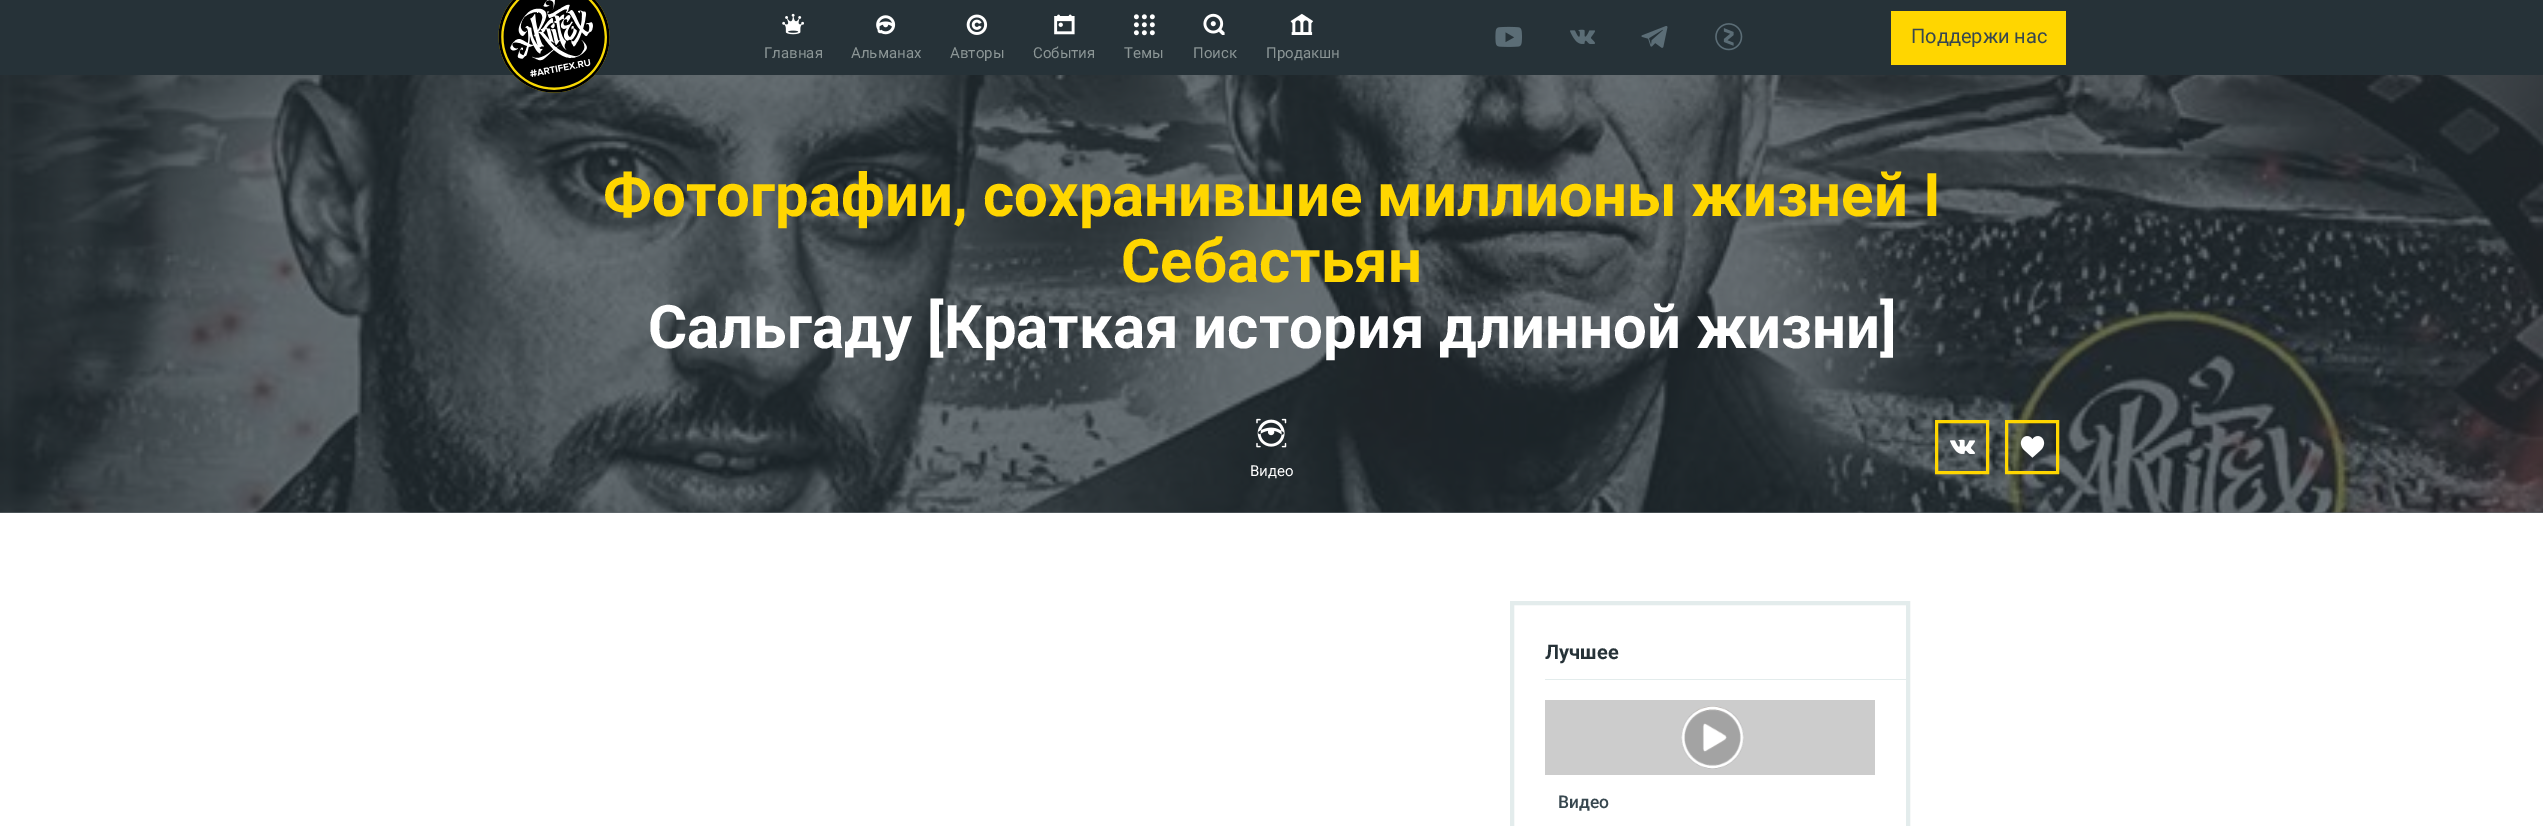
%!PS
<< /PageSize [2543 826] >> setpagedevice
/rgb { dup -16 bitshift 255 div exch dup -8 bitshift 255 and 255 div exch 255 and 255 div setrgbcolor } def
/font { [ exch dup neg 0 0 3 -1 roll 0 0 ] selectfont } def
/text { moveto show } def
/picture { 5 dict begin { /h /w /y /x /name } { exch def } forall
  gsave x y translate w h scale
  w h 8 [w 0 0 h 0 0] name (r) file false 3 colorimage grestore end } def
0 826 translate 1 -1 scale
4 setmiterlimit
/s1 { /Roboto-Regular 20 font 16#37474F rgb } def
/s2 { /Roboto-Regular 15 font 16#8C9696 rgb } def
/s3 { /Roboto-Bold 60 font 16#FFD600 rgb } def
/s4 { /Roboto-Bold 60 font 16#FFFFFF rgb } def
/s5 { /Roboto-Regular 15 font 16#FFFFFF rgb } def
/s6 { /Roboto-Bold 20 font 16#263238 rgb } def
/s7 { /Roboto-Medium 17.5 font 16#37474F rgb } def
16#FFFFFF rgb
0 0 2543 826 rectfill
16#677074 rgb
0 512 2543 1 rectfill
16#263238 rgb
0 0 2543 75 rectfill
(pic13.raw) 0 75 2543 438 picture
(pic1.raw) 498 0 112 93 picture
(pic2.raw) 1495 26 27 21 picture
(pic3.raw) 1570 29 25 15 picture
(pic4.raw) 1641 26 27 22 picture
(pic5.raw) 1715 23 28 28 picture
16#FFD600 rgb
1891 11 175 54 rectfill
s1
(Поддержи нас) 1911 43 text
(pic6.raw) 782 13 22 22 picture
s2
(Главная) 764 58 text
(pic7.raw) 876 15 20 20 picture
(Альманах) 851 58 text
(pic8.raw) 966 14 22 21 picture
(Авторы) 950 58 text
(pic9.raw) 1054 14 21 21 picture
(События) 1033 58 text
(pic10.raw) 1133 14 22 22 picture
(Темы) 1124 58 text
(pic11.raw) 1203 13 22 22 picture
(Поиск) 1193 58 text
(pic12.raw) 1290 13 24 22 picture
(Продакшн) 1266 58 text
s3
(Фотографии, сохранившие миллионы жизней I) 603 216 text
(Себастьян) 1121 282 text
s4
(Сальгаду [Краткая история длинной жизни]) 648 348 text
(pic14.raw) 1256 418 31 30 picture
s5
(Видео) 1250 476 text
16#FFD600 rgb
3 setlinewidth
1936.5 421.5 51 51 rectstroke
(pic15.raw) 1950 439 25 15 picture
2006.5 421.5 51 51 rectstroke
(pic16.raw) 2020 436 25 22 picture
16#E3ECEC rgb
4 setlinewidth
1512 603 396 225 rectstroke
s6
(Лучшее) 1545 659 text
16#E3ECEC rgb
1545 679 361 1 rectfill
16#CCCCCC rgb
1545 700 330 75 rectfill
(pic17.raw) 1681 706 63 63 picture
(pic18.raw) 1684 709 57 57 picture
s7
(Видео) 1558 808 text
showpage
